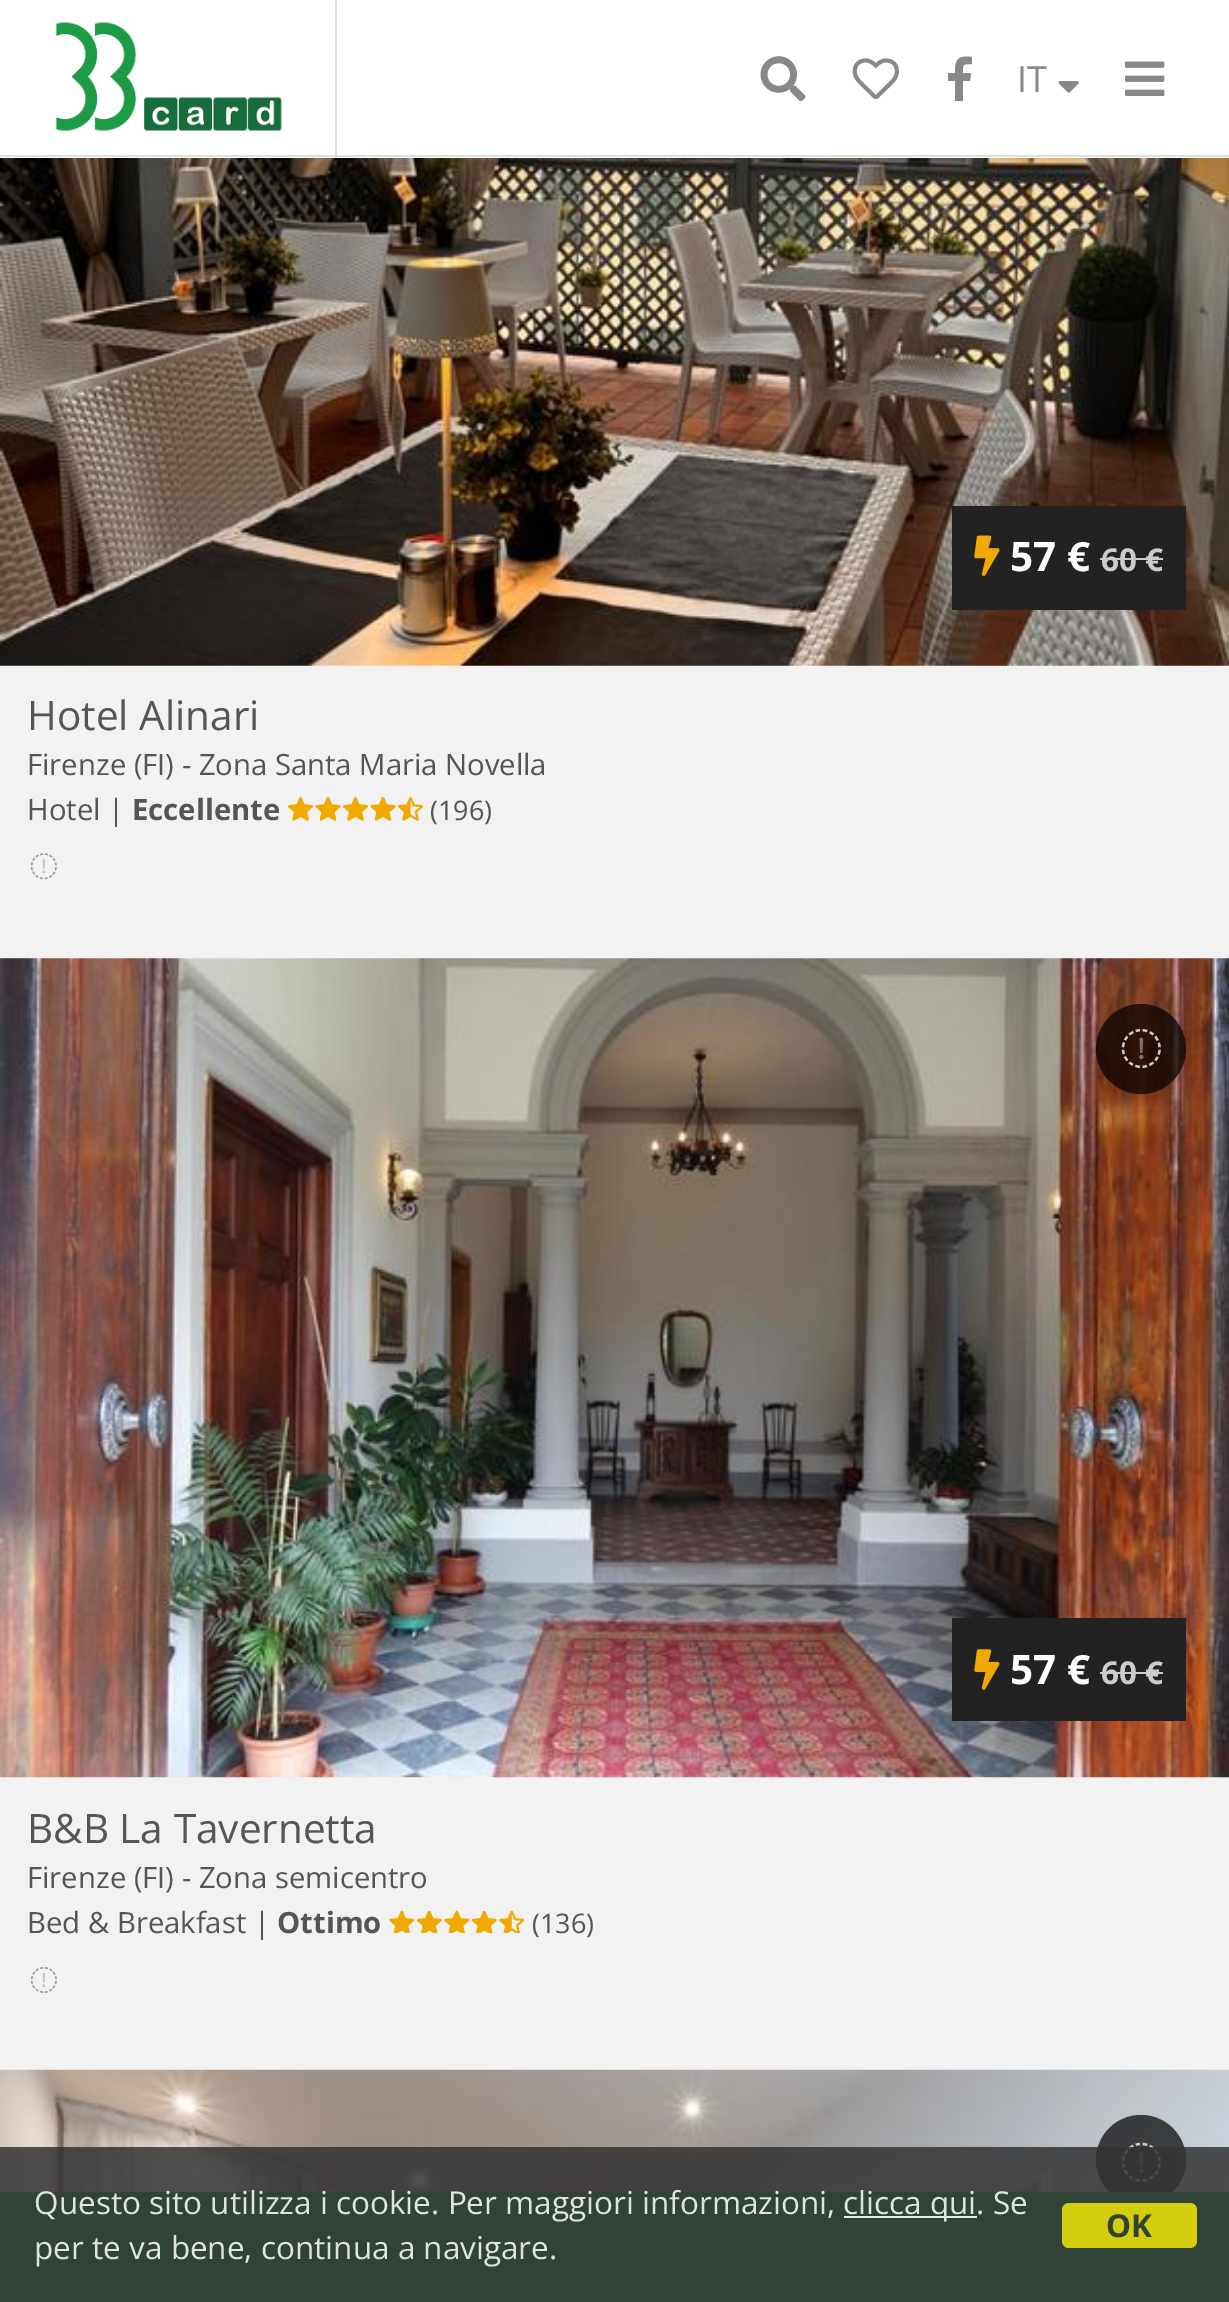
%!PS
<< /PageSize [1229 2302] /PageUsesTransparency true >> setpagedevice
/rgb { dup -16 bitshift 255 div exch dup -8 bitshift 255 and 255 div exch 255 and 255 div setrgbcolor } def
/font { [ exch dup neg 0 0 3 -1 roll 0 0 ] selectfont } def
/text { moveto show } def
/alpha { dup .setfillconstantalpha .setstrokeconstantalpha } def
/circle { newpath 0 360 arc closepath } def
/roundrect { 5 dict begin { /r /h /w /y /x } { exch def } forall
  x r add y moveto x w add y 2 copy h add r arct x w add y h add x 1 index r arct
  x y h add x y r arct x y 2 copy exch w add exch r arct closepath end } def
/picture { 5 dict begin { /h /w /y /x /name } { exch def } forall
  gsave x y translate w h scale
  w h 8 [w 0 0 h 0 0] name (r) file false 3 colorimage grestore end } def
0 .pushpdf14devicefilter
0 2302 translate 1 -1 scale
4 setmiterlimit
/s1 { /OpenSans-Regular 36 font 16#888888 rgb } def
/s2 { /OpenSans-Bold 40.5 font 16#FFFFFF rgb } def
/s3 { /OpenSans-Bold 31.5 font 16#CCCCCC rgb } def
/s4 { /OpenSans-Regular 40.5 font 16#555555 rgb } def
/s5 { /OpenSans-Regular 29.25 font 16#555555 rgb } def
/s6 { /OpenSans-Bold 29.25 font 16#555555 rgb } def
/s7 { /OpenSans-Regular 27 font 16#555555 rgb } def
/s8 { /OpenSans-Regular 31.5 font 16#E0E3E1 rgb } def
/s9 { /OpenSans-Bold 31.5 font 16#314236 rgb } def
16#F2F2F2 rgb
0 0 1229 2302 rectfill
16#FFFFFF rgb
0 0 1229 158 rectfill
16#DCE0E0 rgb
0 155 1229 2 rectfill
335 0 2 158 rectfill
(pic1.raw) 55 22 227 109 picture
(pic2.raw) 760 56 46 46 picture
(pic3.raw) 852 58 47 42 picture
16#888888 rgb
955 101 moveto 955 81 lineto 948 81 lineto 948 73 lineto 955 73 lineto 955 60 957 55 972 57 curveto 972 64 lineto 962 64 963 64 963 73 curveto 971 73 lineto 970 81 lineto 963 81 lineto 963 101 lineto fill
s1
(IT) 1017 92 text
(pic4.raw) 1058 81 21 12 picture
(pic5.raw) 1125 61 40 35 picture
(pic6.raw) 0 158 1229 508 picture
16#222222 rgb
952 506 234 104 rectfill
(pic7.raw) 974 535 26 41 picture
s2
(57 €) 1010 571 text
s3
(60 €) 1101 571 text
1100 558 63 2 rectfill
s4
(Hotel Alinari) 27 730 text
s5
(Firenze \(FI\) - Zona Santa Maria Novella) 27 775 text
(Hotel |) 27 820 text
s6
(Eccellente) 132 820 text
(pic8.raw) 288 797 135 24 picture
s7
(\(196\)) 430 820 text
(pic9.raw) 30 853 27 27 picture
(pic10.raw) 0 958 1229 820 picture
0.7 alpha
16#000000 rgb
1141 1049 45 circle fill
1 alpha
(pic11.raw) 1121 1028 40 41 picture
16#222222 rgb
952 1618 234 103 rectfill
(pic12.raw) 974 1649 26 41 picture
s2
(57 €) 1010 1684 text
s3
(60 €) 1101 1684 text
1100 1672 63 2 rectfill
s4
(B&B La Tavernetta) 27 1843 text
s5
(Firenze \(FI\) - Zona semicentro) 27 1888 text
(Bed & Breakfast |) 27 1933 text
s6
(Ottimo) 277 1933 text
(pic13.raw) 389 1910 135 23 picture
s7
(\(136\)) 532 1933 text
(pic14.raw) 30 1967 27 26 picture
(pic15.raw) 0 2069 1229 123 picture
0.7 alpha
16#000000 rgb
1141 2160 45 circle fill
1 alpha
(pic16.raw) 1121 2142 40 40 picture
16#279A4A rgb
0 2192 1229 110 rectfill
0.85 alpha
16#333333 rgb
0 2147 1229 155 rectfill
1 alpha
s8
(Questo sito utilizza i cookie. Per maggiori informazioni,) 34 2214 text
16#DFF0E4 rgb
844 2216 133 2 rectfill
s8
(clicca qui. Se) 843 2214 text
(per te va bene, continua a navigare.) 34 2259 text
16#D3CD0B rgb
1062 2203 135 45 7 roundrect fill
s9
(OK) 1106 2237 text
.poppdf14devicefilter showpage
